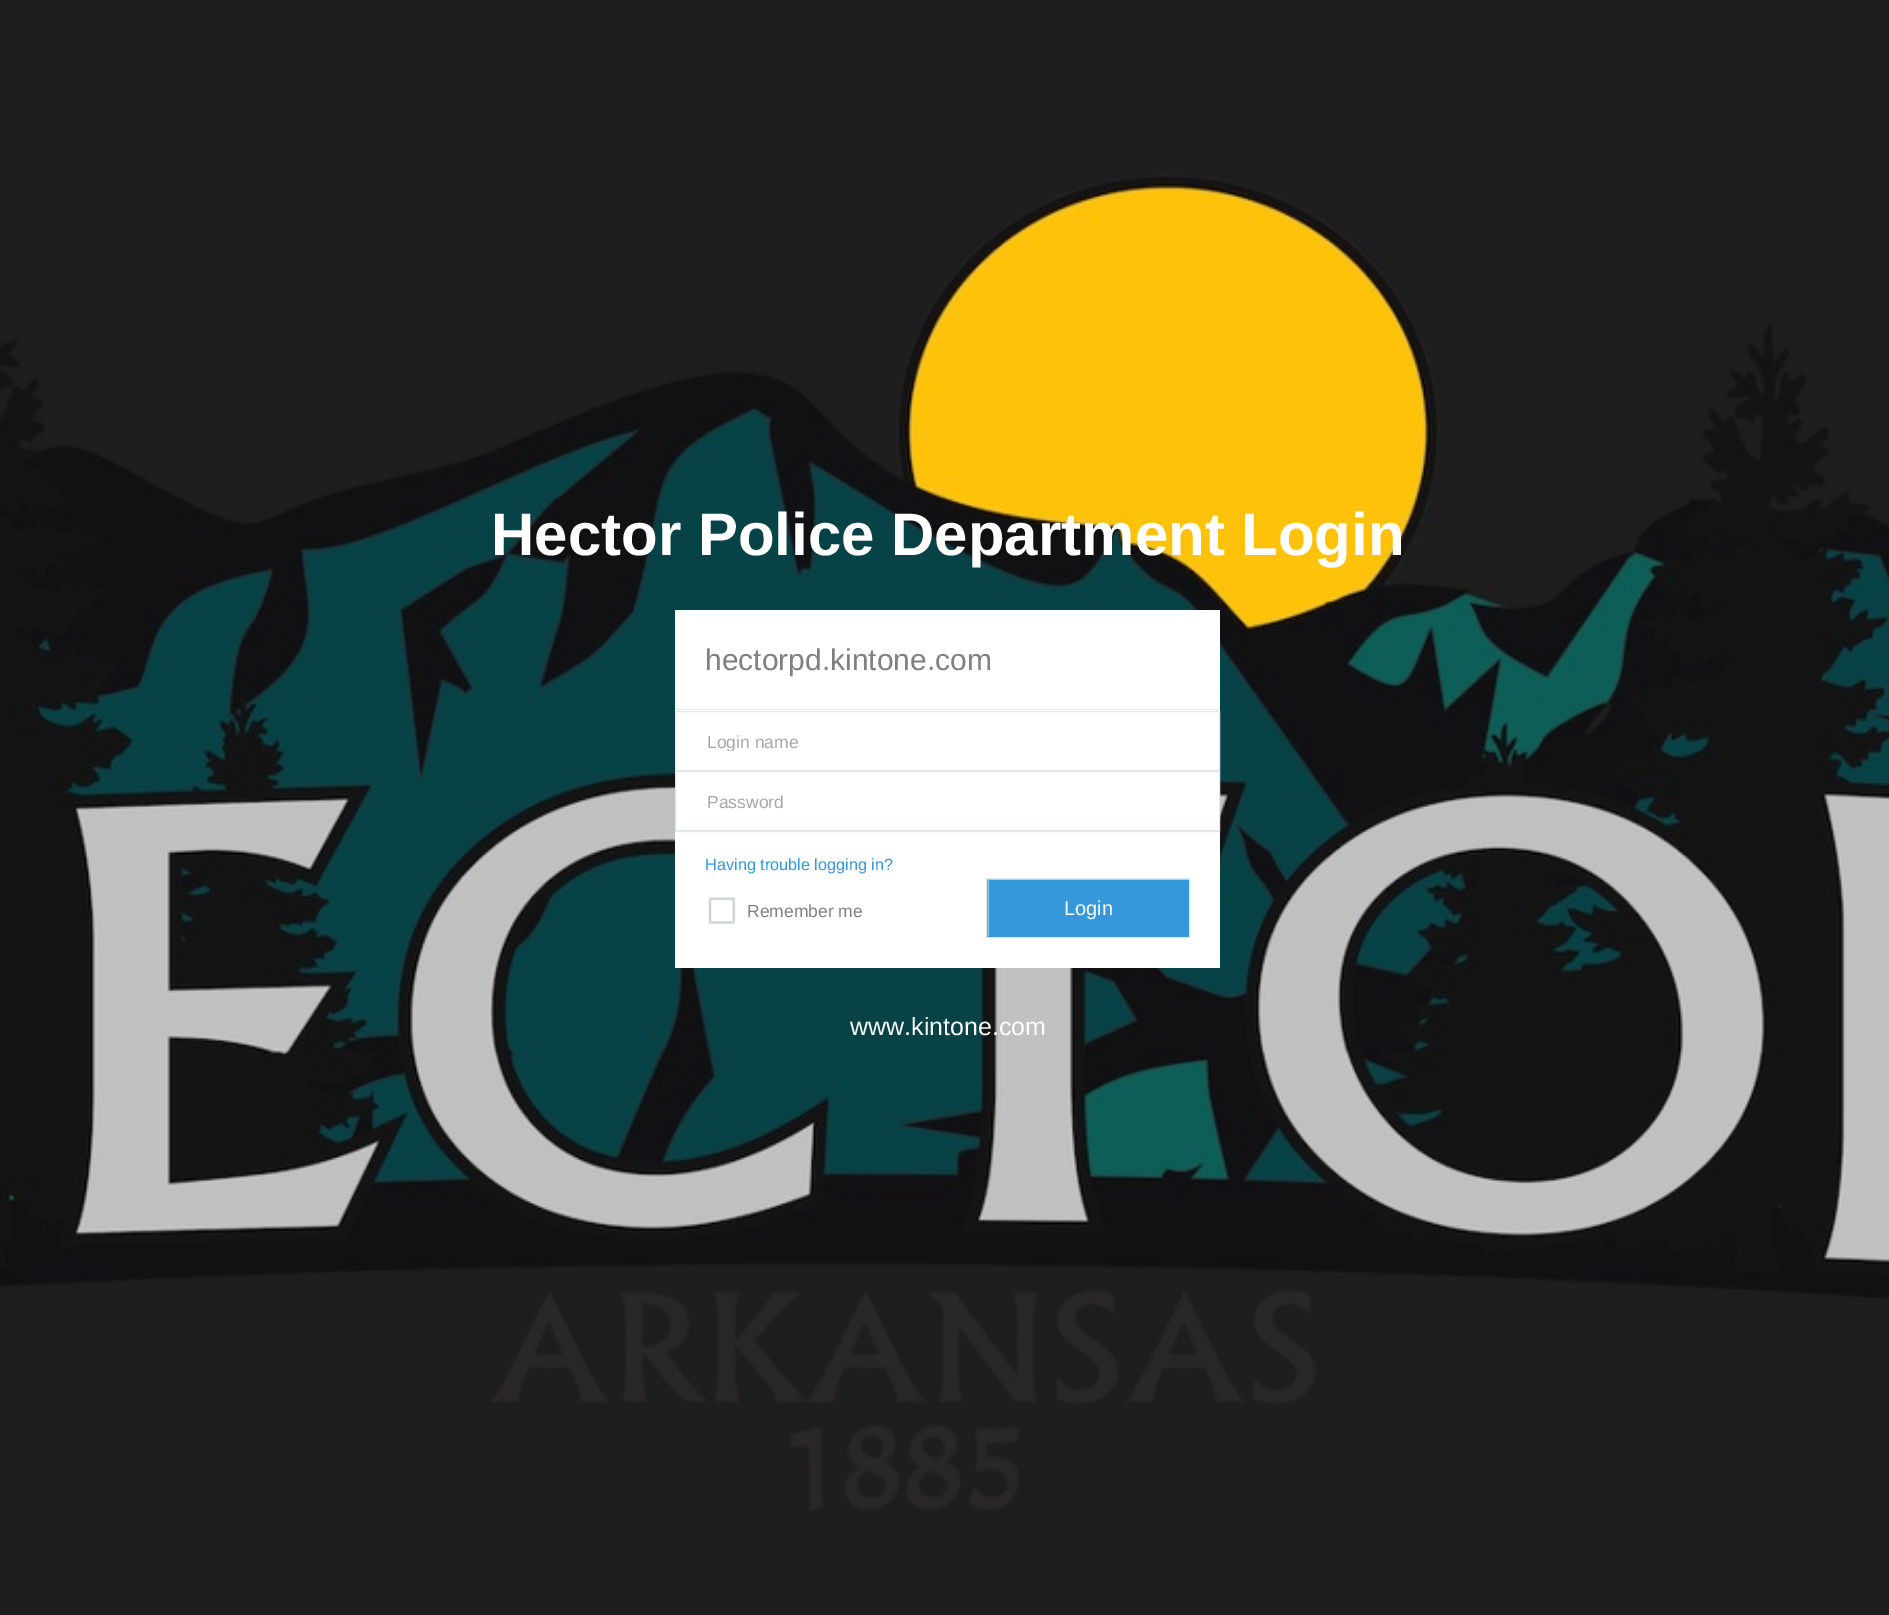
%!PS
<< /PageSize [1889 1615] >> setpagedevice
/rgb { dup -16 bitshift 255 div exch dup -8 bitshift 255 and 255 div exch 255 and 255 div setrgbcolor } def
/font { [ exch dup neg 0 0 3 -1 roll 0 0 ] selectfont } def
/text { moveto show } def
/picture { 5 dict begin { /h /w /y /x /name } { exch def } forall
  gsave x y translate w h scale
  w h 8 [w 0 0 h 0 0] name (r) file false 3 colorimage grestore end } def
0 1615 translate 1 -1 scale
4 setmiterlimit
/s1 { /LiberationSans-Bold 60 font 16#FFFFFF rgb } def
/s2 { /LiberationSans-Regular 30 font 16#808080 rgb } def
/s3 { /LiberationSans-Regular 17.5 font 16#A7A7A7 rgb } def
/s4 { /LiberationSans-Regular 16.25 font 16#3498DB rgb } def
/s5 { /LiberationSans-Regular 17.5 font 16#808080 rgb } def
/s6 { /LiberationSans-Regular 20 font 16#FFFFFF rgb } def
/s7 { /LiberationSans-Regular 25 font 16#FFFFFF rgb } def
16#FFFFFF rgb
0 0 1889 1615 rectfill
(pic1.raw) 0 0 1889 1615 picture
s1
(Hector Police Department Login) 491 555 text
675 610 545 358 rectfill
16#E3E7E8 rgb
675 709 545 1 rectfill
s2
(hectorpd.kintone.com) 705 670 text
16#F7F9FA rgb
675 832 545 1 rectfill
16#E3E7E8 rgb
675 831 545 1 rectfill
675.5 711.5 544 59 rectstroke
gsave
706 731 503 20 rectclip
s3
(Login name) 707 748 text
grestore
675.5 771.5 544 59 rectstroke
s3
(Password) 707 808 text
s4
(Having trouble logging in?) 705 870 text
(pic2.raw) 708 897 28 27 picture
s5
(Remember me) 747 917 text
16#3498DB rgb
987 879 202 58 rectfill
gsave
988 879 201 57 rectclip
16#8CCBEE rgb
864 755 moveto 1312 755 lineto 1312 1060 lineto 864 1060 lineto closepath 989 880 moveto 1190 880 lineto 1190 938 lineto 989 938 lineto closepath eofill
grestore
16#E3E7E8 rgb
986.5 878.5 203 59 rectstroke
s6
(Login) 1064 915 text
s7
(www.kintone.com) 850 1035 text
showpage
